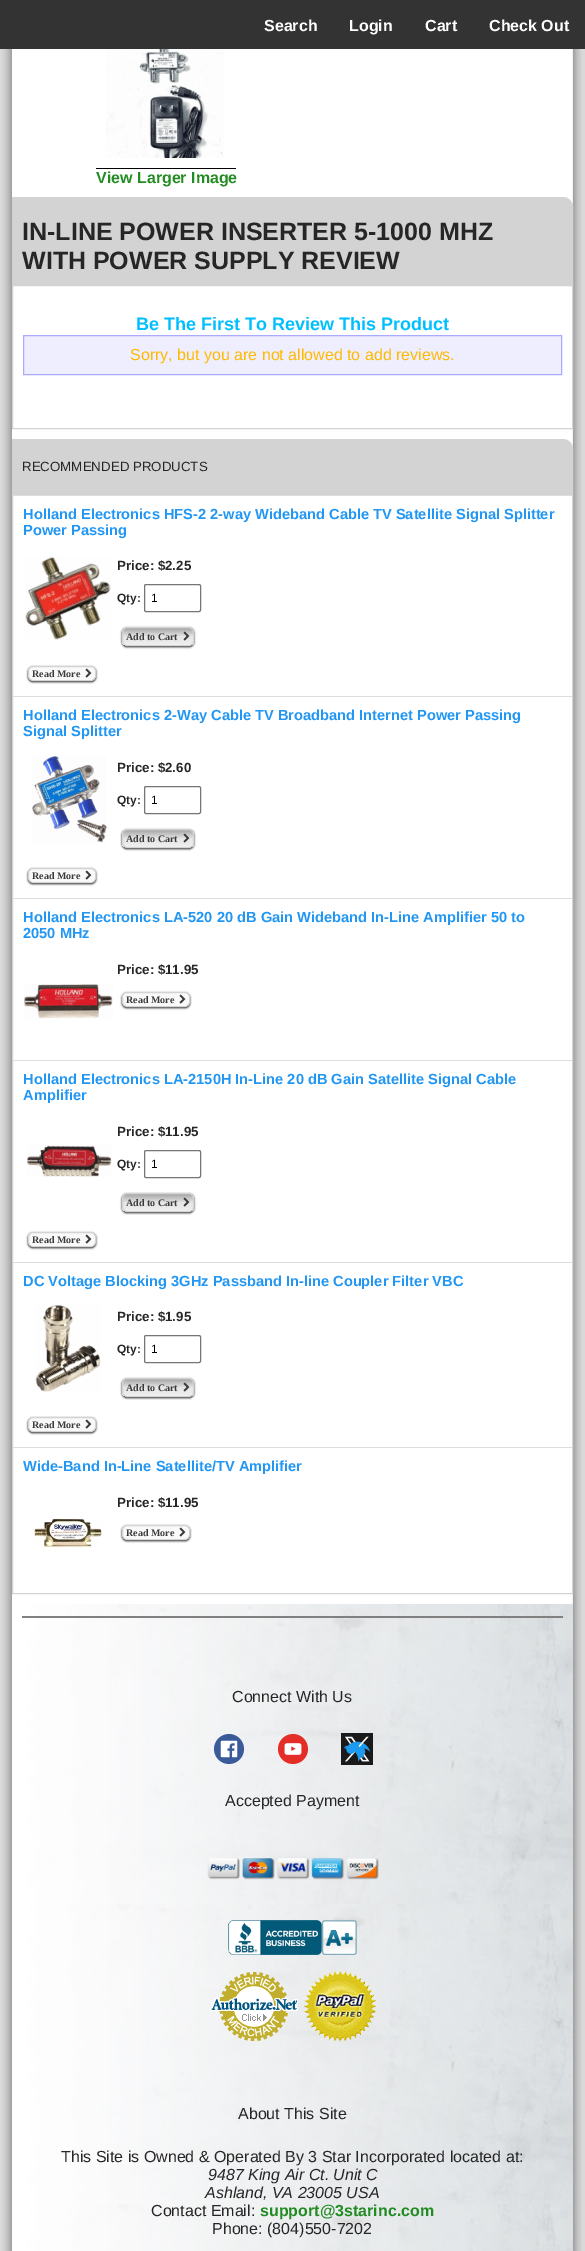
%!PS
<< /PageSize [585 2251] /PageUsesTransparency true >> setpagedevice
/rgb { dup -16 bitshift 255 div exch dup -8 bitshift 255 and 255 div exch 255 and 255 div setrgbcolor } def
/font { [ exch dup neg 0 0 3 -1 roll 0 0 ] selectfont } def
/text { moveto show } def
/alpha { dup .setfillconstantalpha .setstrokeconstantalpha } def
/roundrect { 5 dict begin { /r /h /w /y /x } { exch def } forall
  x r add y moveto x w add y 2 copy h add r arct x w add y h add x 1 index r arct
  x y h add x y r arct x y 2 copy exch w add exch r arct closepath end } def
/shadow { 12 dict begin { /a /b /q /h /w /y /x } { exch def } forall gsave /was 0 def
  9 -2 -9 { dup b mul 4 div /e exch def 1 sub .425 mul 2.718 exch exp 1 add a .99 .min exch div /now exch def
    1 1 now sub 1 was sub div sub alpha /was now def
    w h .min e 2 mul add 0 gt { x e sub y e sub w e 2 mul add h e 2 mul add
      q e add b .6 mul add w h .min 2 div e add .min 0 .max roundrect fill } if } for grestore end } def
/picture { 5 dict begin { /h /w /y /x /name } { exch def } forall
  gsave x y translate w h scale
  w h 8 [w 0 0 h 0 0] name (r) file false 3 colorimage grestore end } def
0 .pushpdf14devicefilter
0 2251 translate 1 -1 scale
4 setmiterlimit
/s1 { /LiberationSans-Bold 16 font 16#FFFFFF rgb } def
/s2 { /LiberationSans-Bold 16 font 16#228B22 rgb } def
/s3 { /LiberationSans-Bold 25 font 16#262626 rgb } def
/s4 { /LiberationSans-Bold 18 font 16#00BFFF rgb } def
/s5 { /LiberationSans-Regular 16 font 16#FFBA00 rgb } def
/s6 { /LiberationSans-Regular 13.3 font 16#262626 rgb } def
/s7 { /LiberationSans-Bold 14.65 font 16#2196F3 rgb } def
/s8 { /LiberationSans-Bold 13.3 font 16#262626 rgb } def
/s9 { /LiberationSans-Bold 12 font 16#262626 rgb } def
/s10 { /LiberationSans-Regular 12 font 16#000000 rgb } def
/s11 { /LiberationSerif-Bold 10 font 16#3A3A3A rgb } def
/s12 { /LiberationSans-Regular 16 font 16#262626 rgb } def
/s13 { /LiberationSans-Italic 16 font 16#262626 rgb } def
16#FFFFFF rgb
0 0 585 2251 rectfill
16#333333 rgb
0 0 585 49 rectfill
s1
(Search) 264 31 text
(Login) 349 31 text
(Cart) 425 31 text
(Check Out) 489 31 text
(pic1.raw) 0 49 585 2202 picture
(pic2.raw) 106 49 118 109 picture
16#000000 rgb
96 168 140 1 rectfill
s2
(View Larger Image) 96 183 text
16#D3D3D3 rgb
13 198 moveto 563 198 lineto 568 198 572 202 572 207 curveto 572 284 lineto 13 284 lineto closepath gsave fill grestore
2 setlinewidth
stroke
s3
(IN-LINE POWER INSERTER 5-1000 MHZ) 22 240 text
(WITH POWER SUPPLY REVIEW) 22 269 text
16#D3D3D3 rgb
1 setlinewidth
12.5 285.5 560 143 rectstroke
s4
(Be The First To Review This Product) 136 330 text
16#EEEEFF rgb
23.5 335.5 moveto 561.5 335.5 lineto 561.5 374.5 lineto 23.5 374.5 lineto closepath gsave fill grestore
16#AAAAFF rgb
stroke
s5
(Sorry, but you are not allowed to add reviews.) 130 360 text
16#D3D3D3 rgb
13 440 moveto 563 440 lineto 568 440 572 444 572 449 curveto 572 493 lineto 13 493 lineto closepath gsave fill grestore
2 setlinewidth
stroke
s6
(RECOMMENDED PRODUCTS) 22 471 text
16#D3D3D3 rgb
1 setlinewidth
12.5 494.5 560 1099 rectstroke
16#DDDDDD rgb
13 495 559 1 rectfill
s7
(Holland Electronics HFS-2 2-way Wideband Cable TV Satellite Signal Splitter) 23 519 text
(Power Passing) 23 535 text
(pic3.raw) 25 556 86 85 picture
s8
(Price: $2.25) 117 570 text
s9
(Qty:) 117 602 text
16#767676 rgb
144.5 584.5 56 27 1.5 roundrect stroke
s10
(1) 151 602 text
122 628 72 19 5 1 1 shadow
gsave
122 627 72 19 5 roundrect clip newpath
gsave 122 628 moveto 194 628 lineto 194 645 lineto 122 645 lineto closepath clip newpath
<< /ShadingType 2 /ColorSpace /DeviceRGB /Coords [158 628 158 645] /Extend [true true] /Function << /FunctionType 3 /Domain [0 1] /Functions [<< /FunctionType 2 /Domain [0 1] /C0 [0.647 0.647 0.647] /C1 [0.898 0.898 0.898] /N 1 >> << /FunctionType 2 /Domain [0 1] /C0 [0.898 0.898 0.898] /C1 [0.937 0.937 0.937] /N 1 >>] /Bounds [0.5] /Encode [0 1 0 1] >> >> shfill grestore
grestore
16#D3D3D3 rgb
122.5 627.5 71 18 4.5 roundrect stroke
s11
(Add to Cart) 126 640 text
(pic4.raw) 183 631 7 10 picture
gsave
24 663 moveto 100 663 lineto 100 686 lineto 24 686 lineto closepath 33 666 moveto 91 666 lineto 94 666 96 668 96 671 curveto 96 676 lineto 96 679 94 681 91 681 curveto 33 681 lineto 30 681 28 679 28 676 curveto 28 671 lineto 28 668 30 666 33 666 curveto closepath eoclip newpath
16#000000 rgb
28 667 68 15 5 1 1 shadow
grestore
0.97 alpha
16#F8F9F8 rgb
28.5 666.5 67 14 4.5 roundrect fill
1 alpha
16#D3D3D3 rgb
28.5 666.5 67 14 4.5 roundrect stroke
s11
(Read More) 32 677 text
(pic5.raw) 85 668 7 10 picture
16#DDDDDD rgb
13 696 559 1 rectfill
s7
(Holland Electronics 2-Way Cable TV Broadband Internet Power Passing) 23 720 text
(Signal Splitter) 23 736 text
(pic6.raw) 32 756 75 87 picture
s8
(Price: $2.60) 117 772 text
s9
(Qty:) 117 804 text
16#767676 rgb
144.5 786.5 56 27 1.5 roundrect stroke
s10
(1) 151 804 text
122 830 72 19 5 1 1 shadow
gsave
122 829 72 19 5 roundrect clip newpath
gsave 122 830 moveto 194 830 lineto 194 847 lineto 122 847 lineto closepath clip newpath
<< /ShadingType 2 /ColorSpace /DeviceRGB /Coords [158 830 158 847] /Extend [true true] /Function << /FunctionType 3 /Domain [0 1] /Functions [<< /FunctionType 2 /Domain [0 1] /C0 [0.647 0.647 0.647] /C1 [0.898 0.898 0.898] /N 1 >> << /FunctionType 2 /Domain [0 1] /C0 [0.898 0.898 0.898] /C1 [0.937 0.937 0.937] /N 1 >>] /Bounds [0.5] /Encode [0 1 0 1] >> >> shfill grestore
grestore
16#D3D3D3 rgb
122.5 829.5 71 18 4.5 roundrect stroke
s11
(Add to Cart) 126 842 text
(pic4.raw) 183 833 7 10 picture
gsave
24 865 moveto 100 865 lineto 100 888 lineto 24 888 lineto closepath 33 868 moveto 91 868 lineto 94 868 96 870 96 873 curveto 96 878 lineto 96 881 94 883 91 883 curveto 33 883 lineto 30 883 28 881 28 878 curveto 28 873 lineto 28 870 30 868 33 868 curveto closepath eoclip newpath
16#000000 rgb
28 869 68 15 5 1 1 shadow
grestore
0.97 alpha
16#F8F9F8 rgb
28.5 868.5 67 14 4.5 roundrect fill
1 alpha
16#D3D3D3 rgb
28.5 868.5 67 14 4.5 roundrect stroke
s11
(Read More) 32 879 text
(pic5.raw) 85 870 7 10 picture
16#DDDDDD rgb
13 898 559 1 rectfill
s7
(Holland Electronics LA-520 20 dB Gain Wideband In-Line Amplifier 50 to) 23 922 text
(2050 MHz) 23 938 text
s8
(Price: $11.95) 117 974 text
(pic7.raw) 24 984 89 35 picture
gsave
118 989 moveto 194 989 lineto 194 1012 lineto 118 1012 lineto closepath 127 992 moveto 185 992 lineto 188 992 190 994 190 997 curveto 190 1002 lineto 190 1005 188 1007 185 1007 curveto 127 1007 lineto 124 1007 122 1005 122 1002 curveto 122 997 lineto 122 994 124 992 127 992 curveto closepath eoclip newpath
16#000000 rgb
122 993 68 15 5 1 1 shadow
grestore
0.97 alpha
16#F8F9F8 rgb
122.5 992.5 67 14 4.5 roundrect fill
1 alpha
16#D3D3D3 rgb
122.5 992.5 67 14 4.5 roundrect stroke
s11
(Read More) 126 1003 text
(pic5.raw) 179 994 7 10 picture
16#DDDDDD rgb
13 1060 559 1 rectfill
s7
(Holland Electronics LA-2150H In-Line 20 dB Gain Satellite Signal Cable) 23 1084 text
(Amplifier) 23 1100 text
(pic8.raw) 27 1145 85 32 picture
s8
(Price: $11.95) 117 1136 text
s9
(Qty:) 117 1168 text
16#767676 rgb
144.5 1150.5 56 27 1.5 roundrect stroke
s10
(1) 151 1168 text
122 1194 72 19 5 1 1 shadow
gsave
122 1193 72 19 5 roundrect clip newpath
gsave 122 1194 moveto 194 1194 lineto 194 1211 lineto 122 1211 lineto closepath clip newpath
<< /ShadingType 2 /ColorSpace /DeviceRGB /Coords [158 1194 158 1211] /Extend [true true] /Function << /FunctionType 3 /Domain [0 1] /Functions [<< /FunctionType 2 /Domain [0 1] /C0 [0.647 0.647 0.647] /C1 [0.898 0.898 0.898] /N 1 >> << /FunctionType 2 /Domain [0 1] /C0 [0.898 0.898 0.898] /C1 [0.937 0.937 0.937] /N 1 >>] /Bounds [0.5] /Encode [0 1 0 1] >> >> shfill grestore
grestore
16#D3D3D3 rgb
122.5 1193.5 71 18 4.5 roundrect stroke
s11
(Add to Cart) 126 1206 text
(pic4.raw) 183 1197 7 10 picture
gsave
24 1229 moveto 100 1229 lineto 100 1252 lineto 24 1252 lineto closepath 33 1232 moveto 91 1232 lineto 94 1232 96 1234 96 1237 curveto 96 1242 lineto 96 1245 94 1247 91 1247 curveto 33 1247 lineto 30 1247 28 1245 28 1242 curveto 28 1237 lineto 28 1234 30 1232 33 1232 curveto closepath eoclip newpath
16#000000 rgb
28 1233 68 15 5 1 1 shadow
grestore
0.97 alpha
16#F8F9F8 rgb
28.5 1232.5 67 14 4.5 roundrect fill
1 alpha
16#D3D3D3 rgb
28.5 1232.5 67 14 4.5 roundrect stroke
s11
(Read More) 32 1243 text
(pic5.raw) 85 1234 7 10 picture
16#DDDDDD rgb
13 1262 559 1 rectfill
s7
(DC Voltage Blocking 3GHz Passband In-line Coupler Filter VBC) 23 1286 text
(pic9.raw) 35 1305 66 87 picture
s8
(Price: $1.95) 117 1321 text
s9
(Qty:) 117 1353 text
16#767676 rgb
144.5 1335.5 56 27 1.5 roundrect stroke
s10
(1) 151 1353 text
122 1379 72 19 5 1 1 shadow
gsave
122 1378 72 19 5 roundrect clip newpath
gsave 122 1379 moveto 194 1379 lineto 194 1396 lineto 122 1396 lineto closepath clip newpath
<< /ShadingType 2 /ColorSpace /DeviceRGB /Coords [158 1379 158 1396] /Extend [true true] /Function << /FunctionType 3 /Domain [0 1] /Functions [<< /FunctionType 2 /Domain [0 1] /C0 [0.647 0.647 0.647] /C1 [0.898 0.898 0.898] /N 1 >> << /FunctionType 2 /Domain [0 1] /C0 [0.898 0.898 0.898] /C1 [0.937 0.937 0.937] /N 1 >>] /Bounds [0.5] /Encode [0 1 0 1] >> >> shfill grestore
grestore
16#D3D3D3 rgb
122.5 1378.5 71 18 4.5 roundrect stroke
s11
(Add to Cart) 126 1391 text
(pic4.raw) 183 1382 7 10 picture
gsave
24 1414 moveto 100 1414 lineto 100 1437 lineto 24 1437 lineto closepath 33 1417 moveto 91 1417 lineto 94 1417 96 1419 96 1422 curveto 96 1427 lineto 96 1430 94 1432 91 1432 curveto 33 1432 lineto 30 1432 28 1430 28 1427 curveto 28 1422 lineto 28 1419 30 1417 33 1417 curveto closepath eoclip newpath
16#000000 rgb
28 1418 68 15 5 1 1 shadow
grestore
0.97 alpha
16#F8F9F8 rgb
28.5 1417.5 67 14 4.5 roundrect fill
1 alpha
16#D3D3D3 rgb
28.5 1417.5 67 14 4.5 roundrect stroke
s11
(Read More) 32 1428 text
(pic5.raw) 85 1419 7 10 picture
16#DDDDDD rgb
13 1447 559 1 rectfill
s7
(Wide-Band In-Line Satellite/TV Amplifier) 23 1471 text
s8
(Price: $11.95) 117 1507 text
(pic10.raw) 33 1518 69 30 picture
gsave
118 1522 moveto 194 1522 lineto 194 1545 lineto 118 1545 lineto closepath 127 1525 moveto 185 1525 lineto 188 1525 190 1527 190 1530 curveto 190 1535 lineto 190 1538 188 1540 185 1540 curveto 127 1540 lineto 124 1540 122 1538 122 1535 curveto 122 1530 lineto 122 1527 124 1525 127 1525 curveto closepath eoclip newpath
16#000000 rgb
122 1526 68 15 5 1 1 shadow
grestore
0.97 alpha
16#F8F9F8 rgb
122.5 1525.5 67 14 4.5 roundrect fill
1 alpha
16#D3D3D3 rgb
122.5 1525.5 67 14 4.5 roundrect stroke
s11
(Read More) 126 1536 text
(pic5.raw) 179 1527 7 10 picture
(pic11.raw) 12 1604 561 647 picture
16#808080 rgb
22 1616 541 2 rectfill
s12
(Connect With Us) 232 1702 text
(pic12.raw) 214 1734 30 30 picture
(pic13.raw) 278 1734 30 30 picture
(pic14.raw) 341 1733 32 32 picture
(Accepted Payment) 225 1806 text
(pic15.raw) 207 1857 172 23 picture
(pic16.raw) 228 1920 94 35 picture
(pic17.raw) 322 1920 35 35 picture
(pic18.raw) 210 1972 88 69 picture
(pic19.raw) 304 1970 72 72 picture
(About This Site) 238 2119 text
(This Site is Owned & Operated By 3 Star Incorporated located at:) 61 2162 text
s13
(9487 King Air Ct. Unit C) 208 2180 text
(Ashland, VA 23005 USA) 205 2198 text
s12
(Contact Email:) 151 2216 text
s2
(support@3starinc.com) 260 2216 text
s12
(Phone: \(804\)550-7202) 212 2234 text
.poppdf14devicefilter showpage
